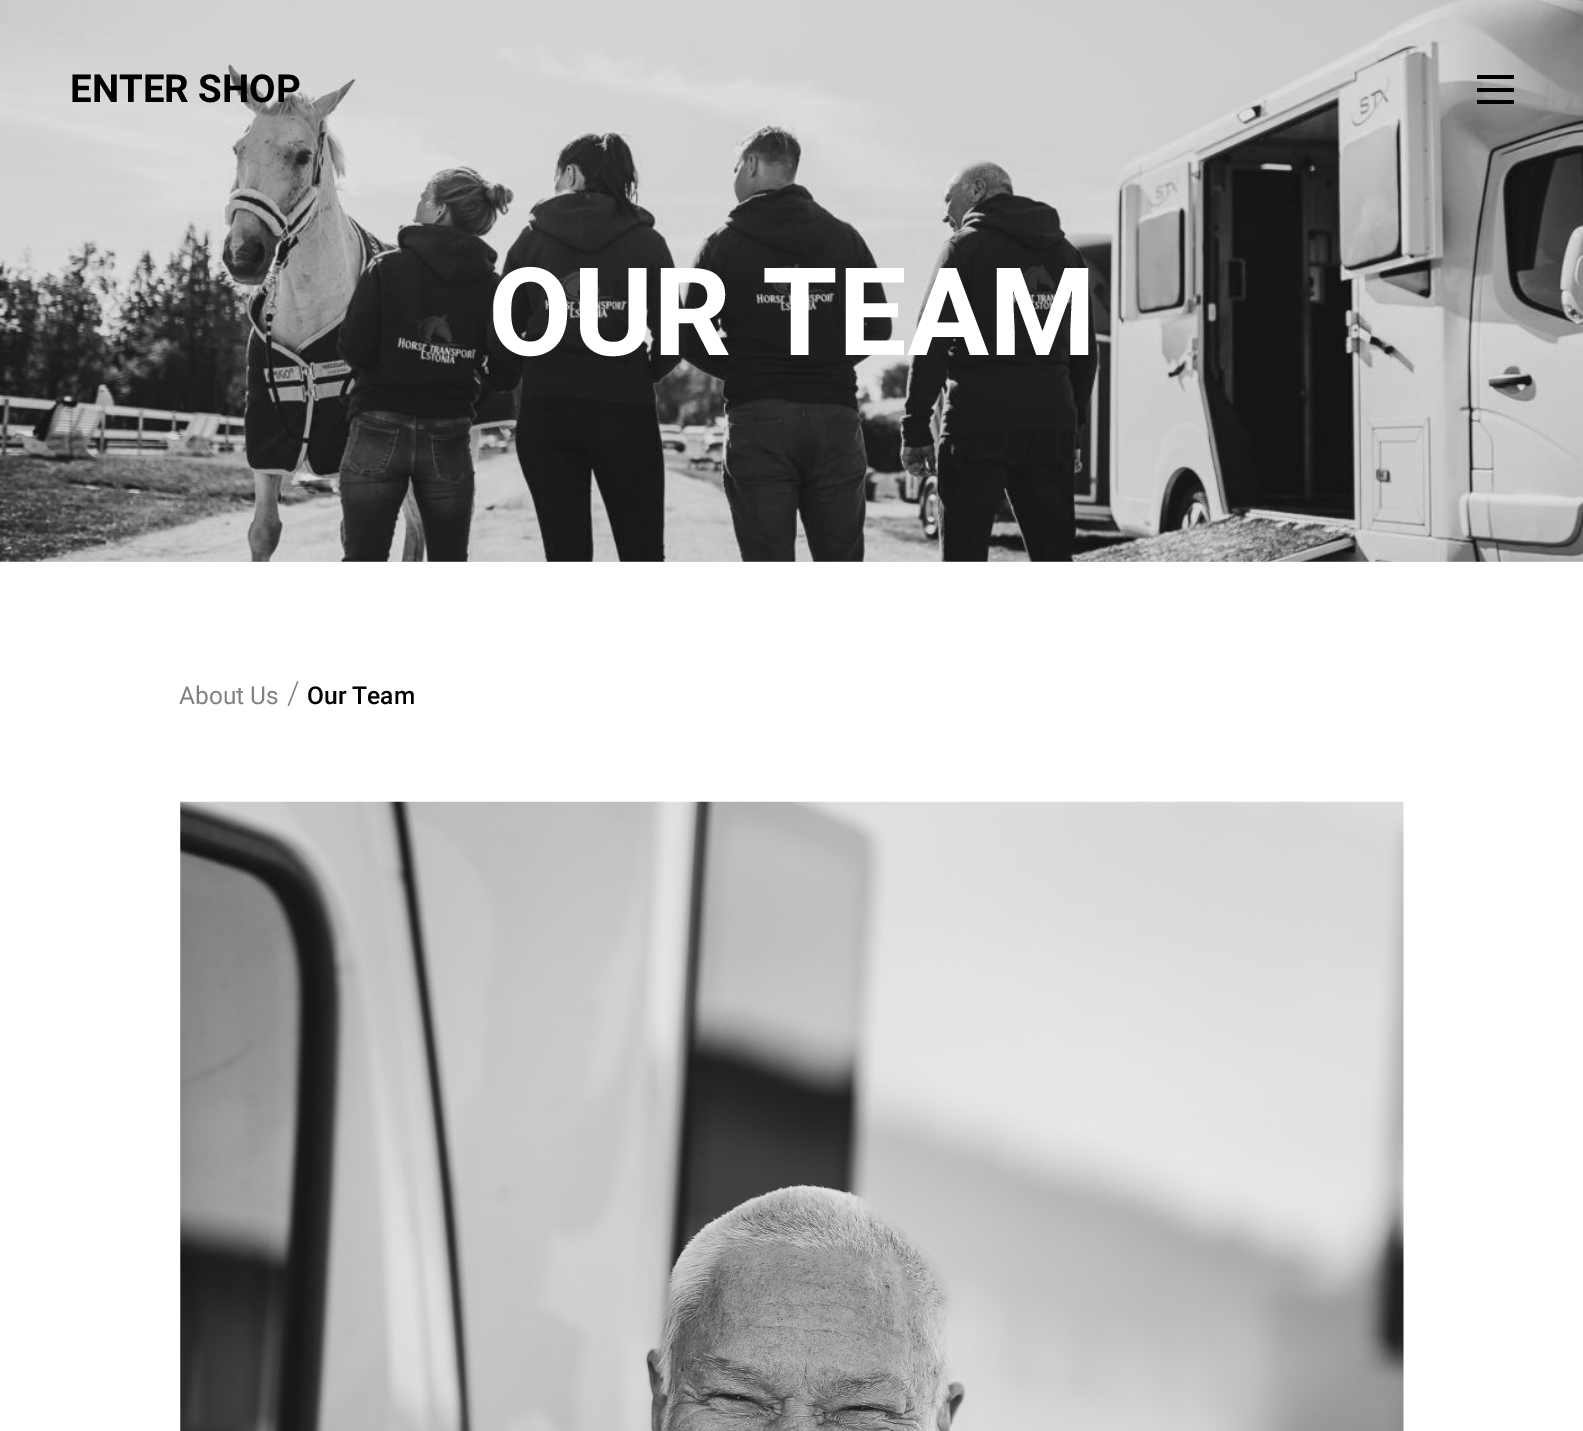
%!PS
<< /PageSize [1583 1431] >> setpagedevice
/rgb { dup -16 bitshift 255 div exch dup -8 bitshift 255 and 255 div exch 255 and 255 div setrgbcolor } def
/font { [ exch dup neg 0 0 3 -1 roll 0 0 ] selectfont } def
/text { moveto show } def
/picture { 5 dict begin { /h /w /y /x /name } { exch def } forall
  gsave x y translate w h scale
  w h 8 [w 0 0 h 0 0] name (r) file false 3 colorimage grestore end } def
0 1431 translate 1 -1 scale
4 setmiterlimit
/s1 { /Roboto-Bold 38.5 font 16#000000 rgb } def
/s2 { /Roboto-Bold 122.5 font 16#FFFFFF rgb } def
/s3 { /Roboto-Regular 24.5 font 16#808080 rgb } def
/s4 { /Roboto-Light 32 font 16#808080 rgb } def
/s5 { /Roboto-Medium 24.5 font 16#000000 rgb } def
16#FFFFFF rgb
0 0 1583 1431 rectfill
(pic1.raw) 0 0 1583 562 picture
s1
(ENTER SHOP) 70 102 text
1477 75 37 4 rectfill
1477 88 37 4 rectfill
1477 100 37 4 rectfill
s2
(OUR TEAM) 488 355 text
s3
(About Us) 179 704 text
s4
(/) 287 704 text
s5
(Our Team) 307 704 text
(pic2.raw) 180 801 1224 630 picture
showpage
